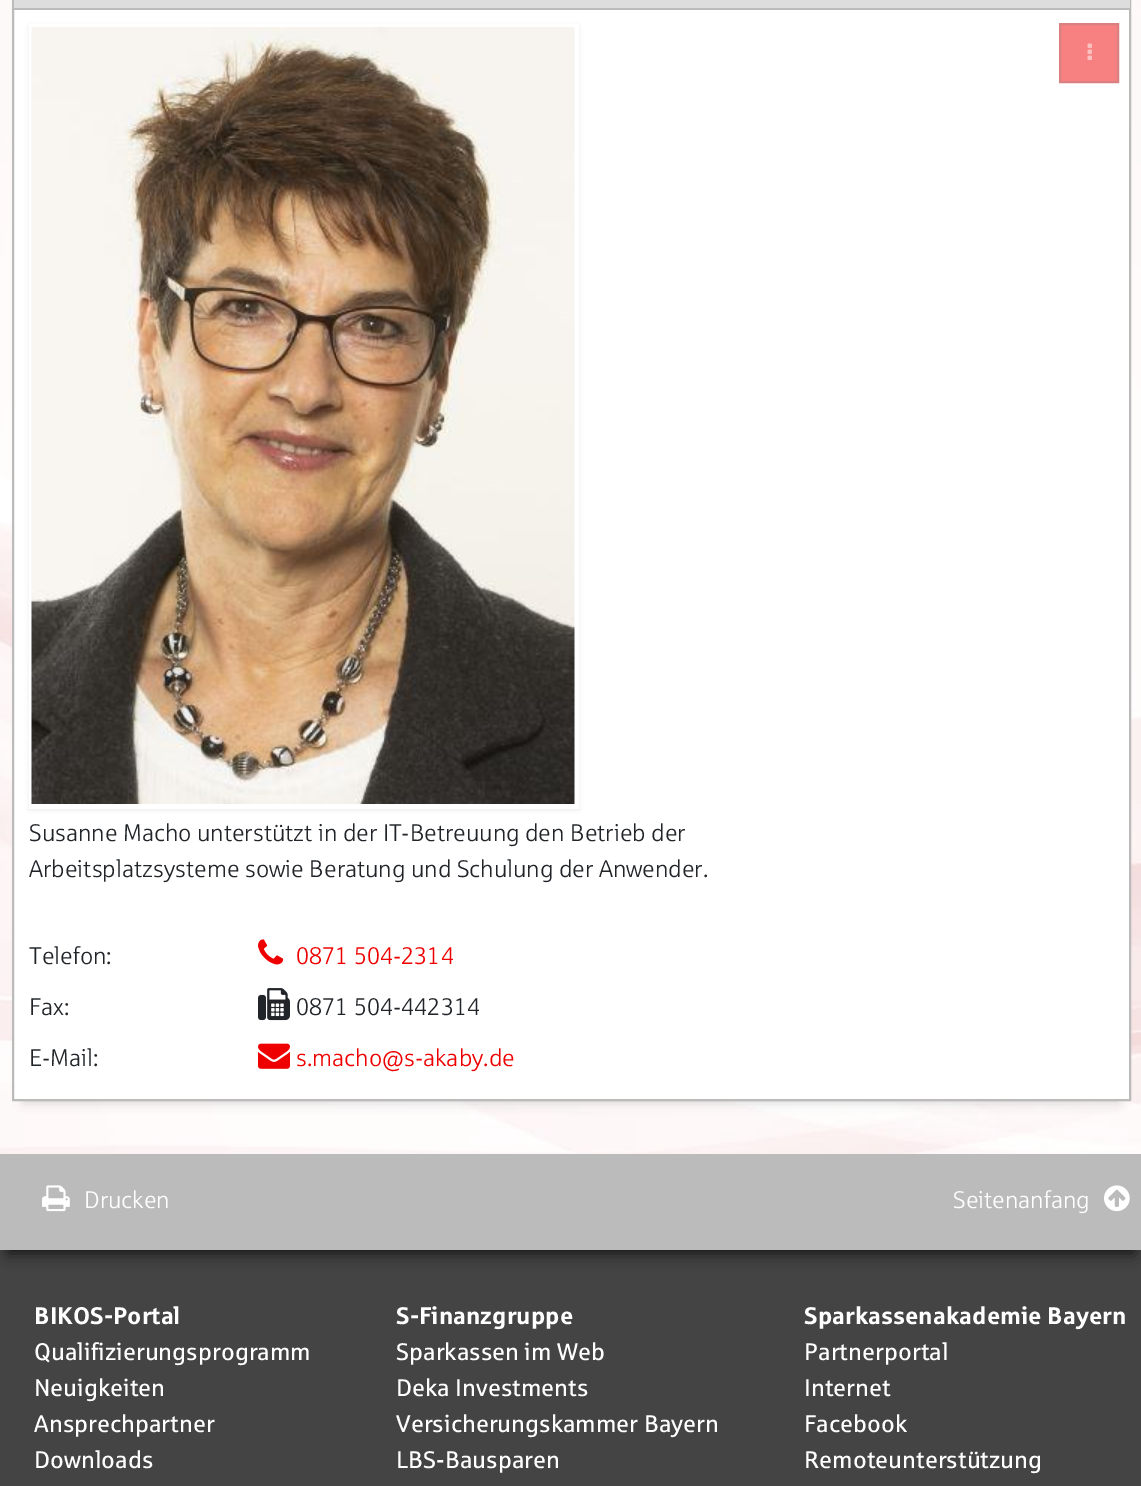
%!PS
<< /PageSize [1141 1486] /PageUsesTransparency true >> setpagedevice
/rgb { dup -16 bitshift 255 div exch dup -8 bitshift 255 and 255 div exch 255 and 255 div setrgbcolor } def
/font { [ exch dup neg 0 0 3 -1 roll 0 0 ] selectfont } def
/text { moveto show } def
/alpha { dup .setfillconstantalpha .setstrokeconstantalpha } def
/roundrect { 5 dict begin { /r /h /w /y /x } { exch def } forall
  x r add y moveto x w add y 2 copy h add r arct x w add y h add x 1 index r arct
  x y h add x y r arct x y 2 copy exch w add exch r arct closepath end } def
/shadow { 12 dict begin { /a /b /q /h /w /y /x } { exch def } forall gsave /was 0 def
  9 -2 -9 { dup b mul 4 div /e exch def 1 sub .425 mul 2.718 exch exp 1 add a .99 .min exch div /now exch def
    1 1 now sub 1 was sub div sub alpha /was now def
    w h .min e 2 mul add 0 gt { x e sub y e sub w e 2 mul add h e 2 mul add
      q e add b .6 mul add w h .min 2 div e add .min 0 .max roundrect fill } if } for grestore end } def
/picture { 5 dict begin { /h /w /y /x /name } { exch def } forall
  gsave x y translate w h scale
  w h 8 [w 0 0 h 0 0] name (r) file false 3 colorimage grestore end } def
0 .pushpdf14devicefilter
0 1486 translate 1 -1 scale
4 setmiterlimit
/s1 { /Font-Regular 24 font 16#212529 rgb } def
/s2 { /Font-Regular 24 font 16#EE0000 rgb } def
/s3 { /Font-Regular 24 font 16#FFFFFF rgb } def
/s4 { /Font-Bold 24 font 16#FFFFFF rgb } def
/s5 { /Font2-Regular 24 font 16#FFFFFF rgb } def
16#FFFFFF rgb
0 0 1141 1486 rectfill
(pic1.raw) 0 0 1141 1154 picture
0.5 alpha
0 0 1141 1154 rectfill
1 alpha
16#000000 rgb
24 -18 1095 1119 0 6 0.2 shadow
16#FFFFFF rgb
14 10 1115 1089 rectfill
16#BBBBBB rgb
2 setlinewidth
13 -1 1117 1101 rectstroke
16#F78080 rgb
1060 24 moveto 1118 24 lineto 1118 82 lineto 1060 82 lineto closepath gsave fill grestore
16#D98080 rgb
stroke
(pic2.raw) 1087 43 5 17 picture
16#DDDDDD rgb
14 0 1116 8 rectfill
16#BBBBBB rgb
14 8 1116 2 rectfill
gsave
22 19 moveto 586 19 lineto 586 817 lineto 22 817 lineto closepath 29 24 moveto 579 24 lineto 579 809 lineto 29 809 lineto closepath eoclip newpath
16#000000 rgb
29 26 550 784 0 2 0.07 shadow
grestore
(pic3.raw) 31 27 544 777 picture
s1
(Susanne Macho unterstützt in der IT-Betreuung den Betrieb der) 29 841 text
(Arbeitsplatzsysteme sowie Beratung und Schulung der Anwender.) 29 877 text
(Telefon:) 29 964 text
(pic4.raw) 258 939 26 26 picture
s2
(0871 504-2314) 296 964 text
s1
(Fax:) 29 1015 text
(pic5.raw) 258 988 32 33 picture
(0871 504-442314) 296 1015 text
(E-Mail:) 29 1066 text
(pic6.raw) 258 1043 32 26 picture
s2
(s.macho@s-akaby.de) 296 1066 text
16#444444 rgb
0 1250 1141 236 rectfill
16#000000 rgb
8 1172 1126 81 0 7.5 0.75 shadow
16#BBBBBB rgb
0 1154 1141 96 rectfill
(pic7.raw) 42 1185 28 27 picture
s3
(Drucken) 84 1208 text
(Seitenanfang) 953 1208 text
(pic8.raw) 1104 1185 26 27 picture
s4
(BIKOS-Portal) 34 1324 text
s5
(Qualifizierungsprogramm) 34 1360 text
(Neuigkeiten) 34 1396 text
(Ansprechpartner) 34 1432 text
(Downloads) 34 1468 text
s4
(S-Finanzgruppe) 396 1324 text
s5
(Sparkassen im Web) 396 1360 text
(Deka Investments) 396 1396 text
(Versicherungskammer Bayern) 396 1432 text
(LBS-Bausparen) 396 1468 text
s4
(Sparkassenakademie Bayern) 804 1324 text
s5
(Partnerportal) 804 1360 text
(Internet) 804 1396 text
(Facebook) 804 1432 text
(Remoteunterstützung) 804 1468 text
.poppdf14devicefilter showpage
